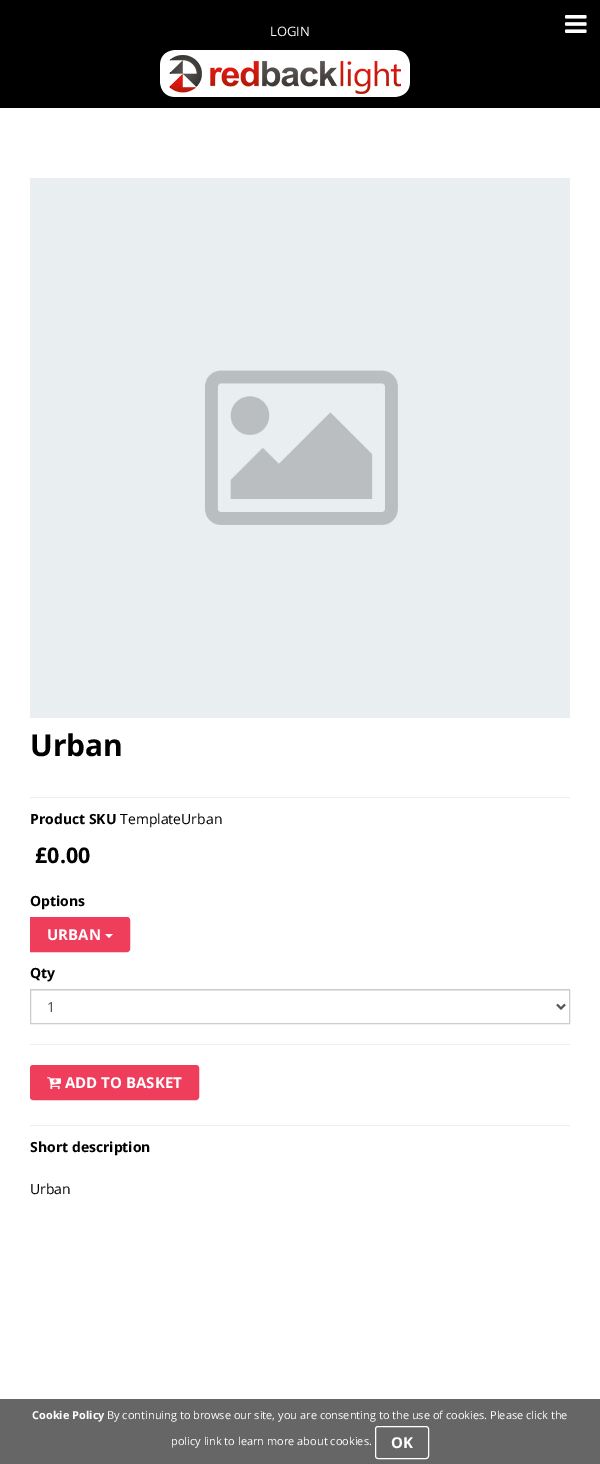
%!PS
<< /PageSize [600 1464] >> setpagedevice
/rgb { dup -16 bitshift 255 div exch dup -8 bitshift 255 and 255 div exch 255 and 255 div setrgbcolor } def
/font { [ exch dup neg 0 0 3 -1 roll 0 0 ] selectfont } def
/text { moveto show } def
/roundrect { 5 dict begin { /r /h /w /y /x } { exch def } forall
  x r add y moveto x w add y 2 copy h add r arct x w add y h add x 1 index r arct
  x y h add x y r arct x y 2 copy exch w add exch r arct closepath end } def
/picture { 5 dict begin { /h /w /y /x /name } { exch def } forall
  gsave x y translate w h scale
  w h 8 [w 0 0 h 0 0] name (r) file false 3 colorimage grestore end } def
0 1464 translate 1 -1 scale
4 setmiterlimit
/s1 { /OpenSans-Regular 13 font 16#FFFFFF rgb } def
/s2 { /OpenSans-Bold 30 font 16#000000 rgb } def
/s3 { /OpenSans-Bold 14 font 16#000000 rgb } def
/s4 { /OpenSans-Regular 14 font 16#000000 rgb } def
/s5 { /OpenSans-Bold 21.5 font 16#000000 rgb } def
/s6 { /OpenSans-Bold 15 font 16#FFFFFF rgb } def
/s7 { /OpenSans-Regular 14 font 16#555555 rgb } def
/s8 { /OpenSans-Bold 11 font 16#FFFFFF rgb } def
/s9 { /OpenSans-Regular 11 font 16#FFFFFF rgb } def
16#000000 rgb
0 0 600 1464 rectfill
s1
(LOGIN) 270 36 text
(pic1.raw) 565 15 22 18 picture
(pic2.raw) 160 50 250 47 picture
0 108 600 1291 rectfill
(pic3.raw) 30 178 540 540 picture
s2
(Urban) 30 756 text
16#EEEEEE rgb
30 797 540 1 rectfill
s3
(Product SKU) 30 824 text
s4
(TemplateUrban) 120 824 text
s5
(£0.00) 35 863 text
s3
(Options) 30 906 text
16#EF3E5C rgb
31 918 moveto 127 918 lineto 128 918 129 919 129 920 curveto 129 949 lineto 129 950 128 951 127 951 curveto 31 951 lineto closepath gsave fill grestore
2 setlinewidth
stroke
s6
(URBAN) 47 940 text
105 934 moveto 113 934 lineto 109 938 lineto closepath fill
s3
(Qty) 30 978 text
16#ECECEC rgb
31 990 538 1 rectfill
16#CCCCCC rgb
1 setlinewidth
30.5 989.5 539 34 rectstroke
16#555555 rgb
2 setlinewidth
557 1004.5 moveto 561 1008.5 lineto 565 1004.5 lineto stroke
s7
(1) 47 1012 text
16#EEEEEE rgb
30 1044 540 1 rectfill
16#EF3E5C rgb
31 1066 167 33 2 roundrect gsave fill grestore
stroke
(pic4.raw) 47 1077 14 13 picture
s6
(ADD TO BASKET) 65 1088 text
16#EEEEEE rgb
30 1125 540 1 rectfill
s3
(Short description) 30 1152 text
s4
(Urban) 30 1194 text
16#666666 rgb
0 1399 600 65 rectfill
s8
(Cookie Policy) 32 1419 text
s9
(By continuing to browse our site, you are consenting to the use of cookies. Please click the) 107 1419 text
(policy link to learn more about cookies.) 171 1445 text
1 setlinewidth
375.5 1426.5 53 32 2.5 roundrect stroke
s6
(OK) 391 1448 text
showpage
